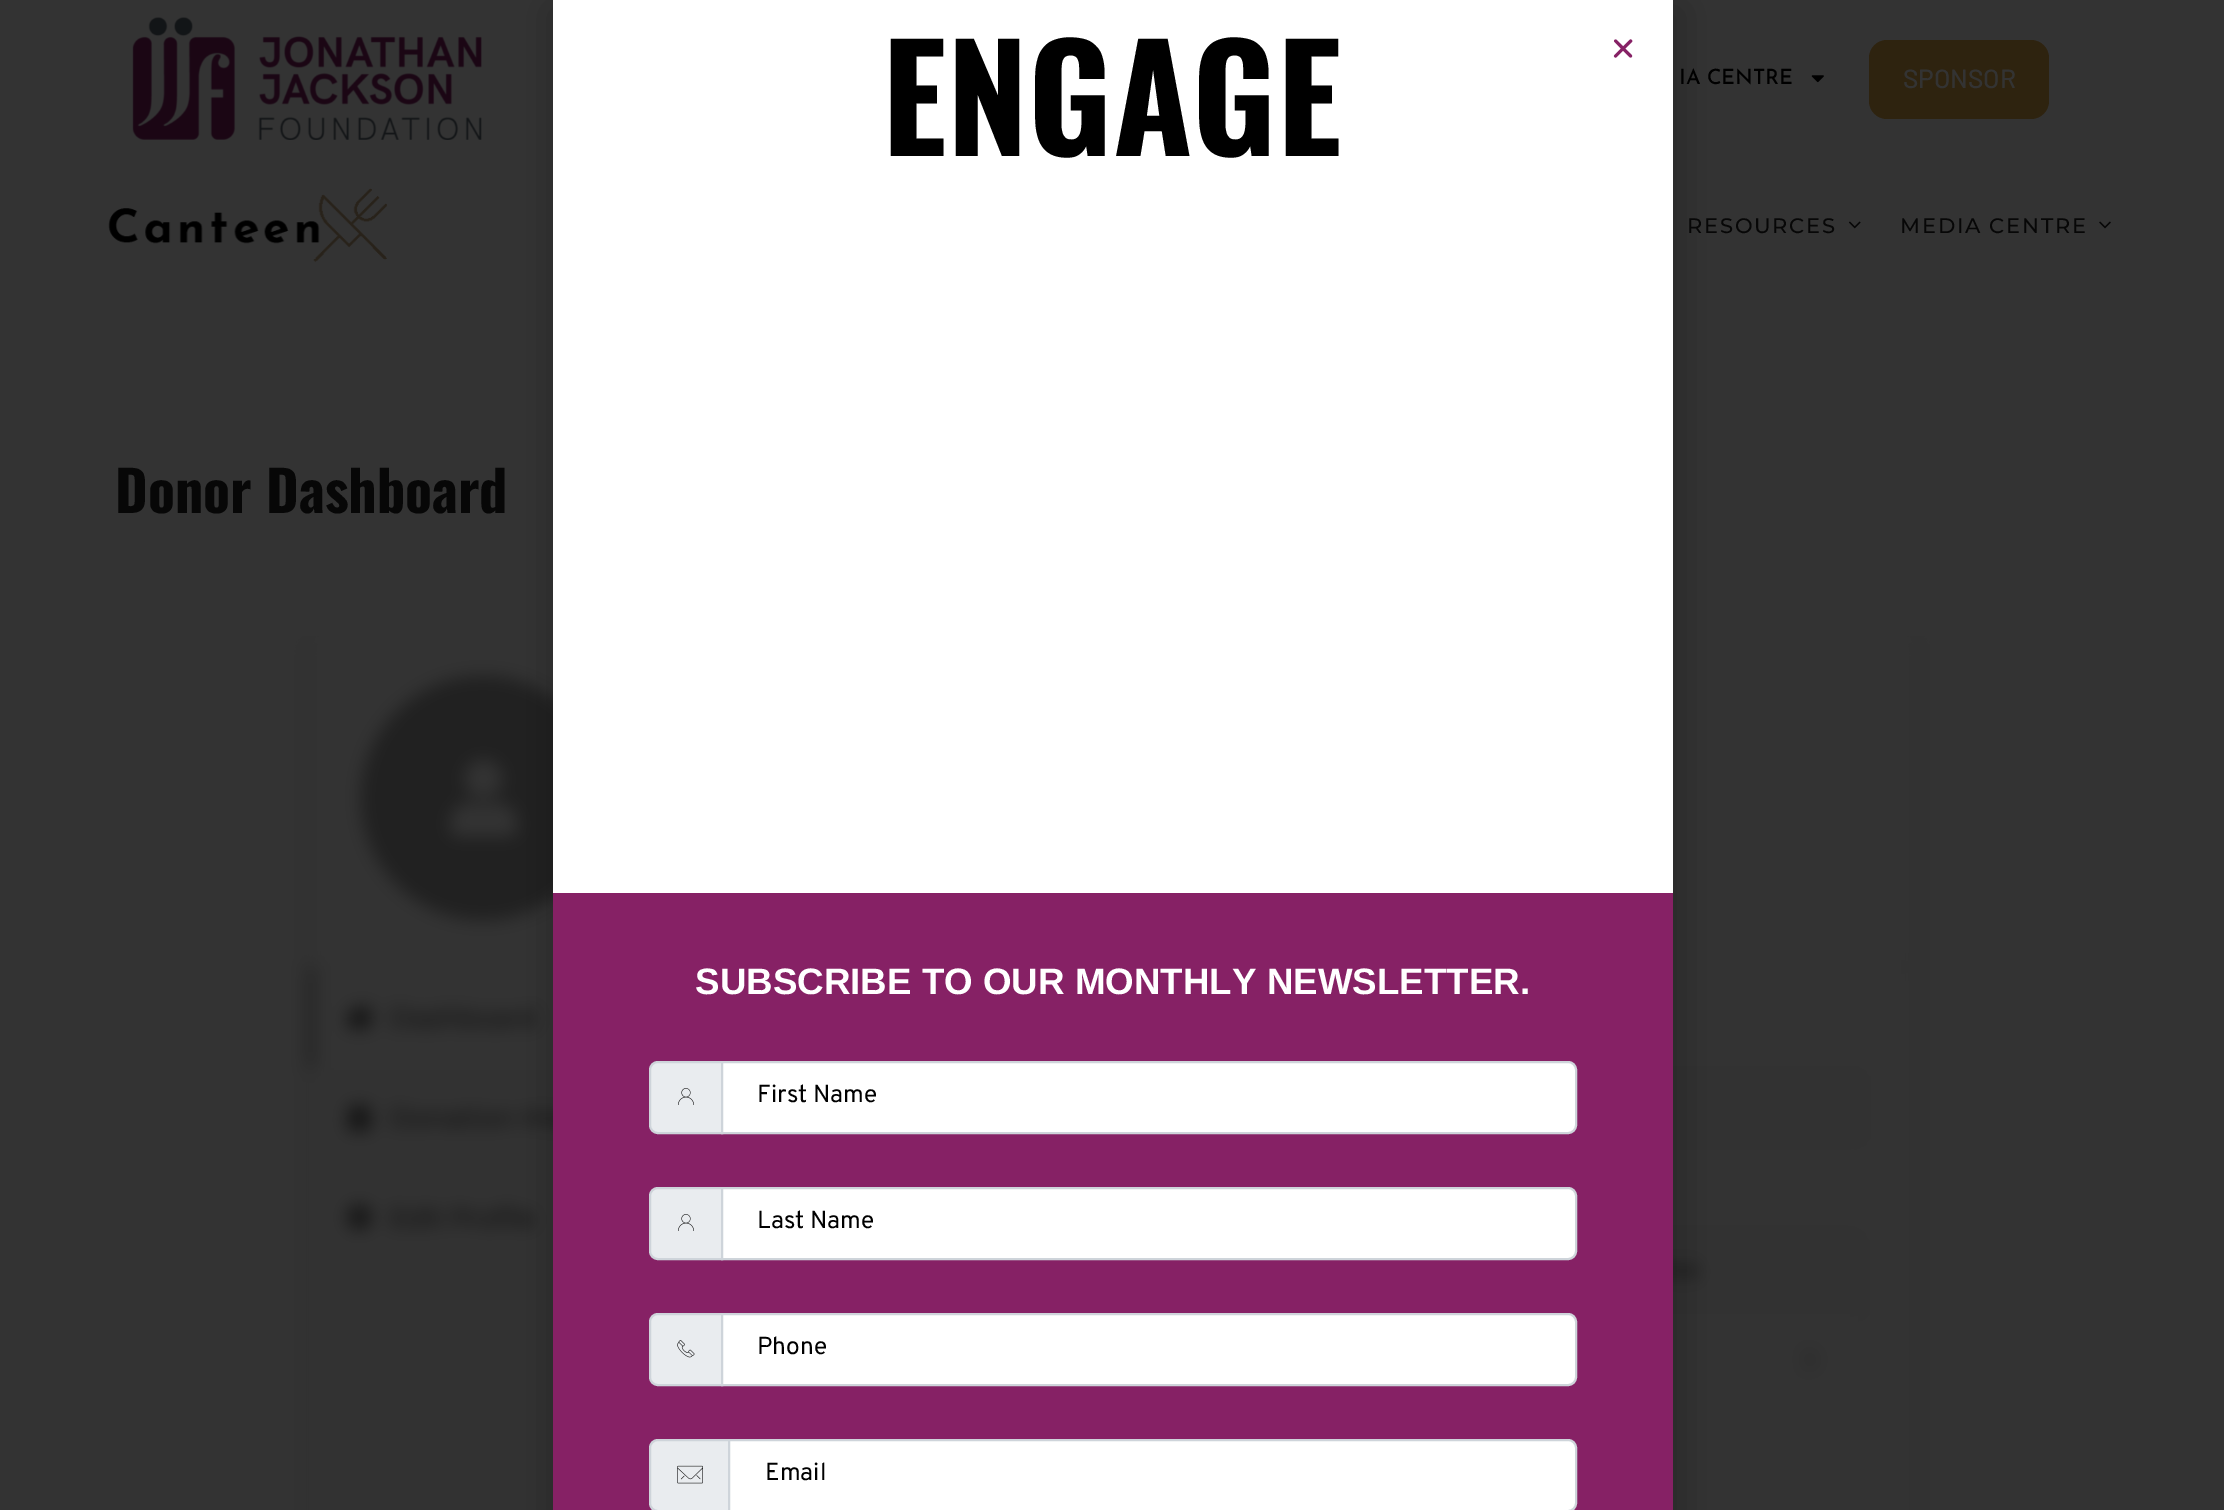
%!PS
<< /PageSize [2224 1510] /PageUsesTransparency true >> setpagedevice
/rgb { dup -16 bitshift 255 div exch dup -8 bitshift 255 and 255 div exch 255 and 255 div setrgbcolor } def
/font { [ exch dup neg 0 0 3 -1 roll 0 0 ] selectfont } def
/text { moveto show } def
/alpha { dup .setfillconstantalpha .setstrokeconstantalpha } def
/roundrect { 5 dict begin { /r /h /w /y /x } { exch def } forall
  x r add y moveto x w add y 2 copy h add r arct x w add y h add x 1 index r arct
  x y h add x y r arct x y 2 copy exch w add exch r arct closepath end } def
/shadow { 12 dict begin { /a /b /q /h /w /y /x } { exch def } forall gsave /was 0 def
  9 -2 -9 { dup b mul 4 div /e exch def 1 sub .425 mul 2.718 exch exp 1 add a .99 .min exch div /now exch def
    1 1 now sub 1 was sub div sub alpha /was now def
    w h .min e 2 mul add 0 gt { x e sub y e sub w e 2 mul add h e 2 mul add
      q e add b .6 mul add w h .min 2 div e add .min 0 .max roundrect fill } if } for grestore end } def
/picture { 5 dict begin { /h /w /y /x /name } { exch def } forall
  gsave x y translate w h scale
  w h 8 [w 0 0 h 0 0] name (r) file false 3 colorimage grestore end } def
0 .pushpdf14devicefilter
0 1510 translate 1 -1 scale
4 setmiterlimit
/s1 { /Oswald-Bold 145 font 16#000000 rgb } def
/s2 { /LiberationSans-Bold 36.75 font 16#FFFFFF rgb } def
/s3 { /Overpass-Regular 24.5 font 16#000000 rgb } def
/s4 { /JosefinSans-Medium 21 font 16#000000 rgb } def
/s5 { /Barlow-Medium 26.25 font 16#333333 rgb } def
/s6 { /Oswald-Bold 56 font 16#070707 rgb } def
16#333333 rgb
0 0 2224 1510 rectfill
(pic10.raw) 291 636 1639 874 picture
16#000000 rgb
551 9 1131 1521 0 20 0.2 shadow
16#FFFFFF rgb
553 0 1120 893 rectfill
s1
(ENGAGE) 882 156 text
16#862165 rgb
553 893 1120 617 rectfill
s2
(SUBSCRIBE TO OUR MONTHLY NEWSLETTER.) 695 994 text
16#E9ECEF rgb
658 1062 moveto 722 1062 lineto 722 1133 lineto 658 1133 lineto 653.5 1133 650 1129.5 650 1125 curveto 650 1070 lineto 650 1065.5 653.5 1062 658 1062 curveto closepath gsave fill grestore
16#CED4DA rgb
2 setlinewidth
stroke
(pic1.raw) 678 1088 16 17 picture
16#FFFFFF rgb
722 1062 moveto 1568 1062 lineto 1572.5 1062 1576 1065.5 1576 1070 curveto 1576 1125 lineto 1576 1129.5 1572.5 1133 1568 1133 curveto 722 1133 lineto closepath gsave fill grestore
16#CED4DA rgb
stroke
s3
(First Name) 757 1102 text
16#E9ECEF rgb
658 1188 moveto 722 1188 lineto 722 1259 lineto 658 1259 lineto 653.5 1259 650 1255.5 650 1251 curveto 650 1196 lineto 650 1191.5 653.5 1188 658 1188 curveto closepath gsave fill grestore
16#CED4DA rgb
stroke
(pic1.raw) 678 1214 16 17 picture
16#FFFFFF rgb
722 1188 moveto 1568 1188 lineto 1572.5 1188 1576 1191.5 1576 1196 curveto 1576 1251 lineto 1576 1255.5 1572.5 1259 1568 1259 curveto 722 1259 lineto closepath gsave fill grestore
16#CED4DA rgb
stroke
s3
(Last Name) 757 1228 text
16#E9ECEF rgb
658 1314 moveto 722 1314 lineto 722 1385 lineto 658 1385 lineto 653.5 1385 650 1381.5 650 1377 curveto 650 1322 lineto 650 1317.5 653.5 1314 658 1314 curveto closepath gsave fill grestore
16#CED4DA rgb
stroke
(pic2.raw) 677 1340 18 18 picture
16#FFFFFF rgb
722 1314 moveto 1568 1314 lineto 1572.5 1314 1576 1317.5 1576 1322 curveto 1576 1377 lineto 1576 1381.5 1572.5 1385 1568 1385 curveto 722 1385 lineto closepath gsave fill grestore
16#CED4DA rgb
stroke
s3
(Phone) 757 1354 text
16#E9ECEF rgb
658 1440 moveto 729 1440 lineto 729 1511 lineto 658 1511 lineto 653.5 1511 650 1507.5 650 1503 curveto 650 1448 lineto 650 1443.5 653.5 1440 658 1440 curveto closepath gsave fill grestore
16#CED4DA rgb
stroke
(pic3.raw) 677 1465 26 19 picture
16#FFFFFF rgb
729 1440 moveto 1568 1440 lineto 1572.5 1440 1576 1443.5 1576 1448 curveto 1576 1503 lineto 1576 1507.5 1572.5 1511 1568 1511 curveto 729 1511 lineto closepath gsave fill grestore
16#CED4DA rgb
stroke
s3
(Email) 765 1480 text
(pic4.raw) 1613 39 20 19 picture
(pic5.raw) 132 17 350 123 picture
s4
(IA CENTRE) 1679 84 text
(pic6.raw) 1811 75 13 8 picture
16#2E230F rgb
1869 40 180 79 18 roundrect fill
s5
(SPONSOR) 1903 88 text
(pic7.raw) 108 188 280 75 picture
/Montserrat-Medium 21 font
16#070707 rgb
1687 233 moveto 1.75 0 (RESOURCES) ashow
(pic8.raw) 1848 221 13 8 picture
1900 233 moveto 1.75 0 (MEDIA CENTRE) ashow
(pic9.raw) 2099 221 12 8 picture
s6
(Donor Dashboard) 115 513 text
.poppdf14devicefilter showpage
